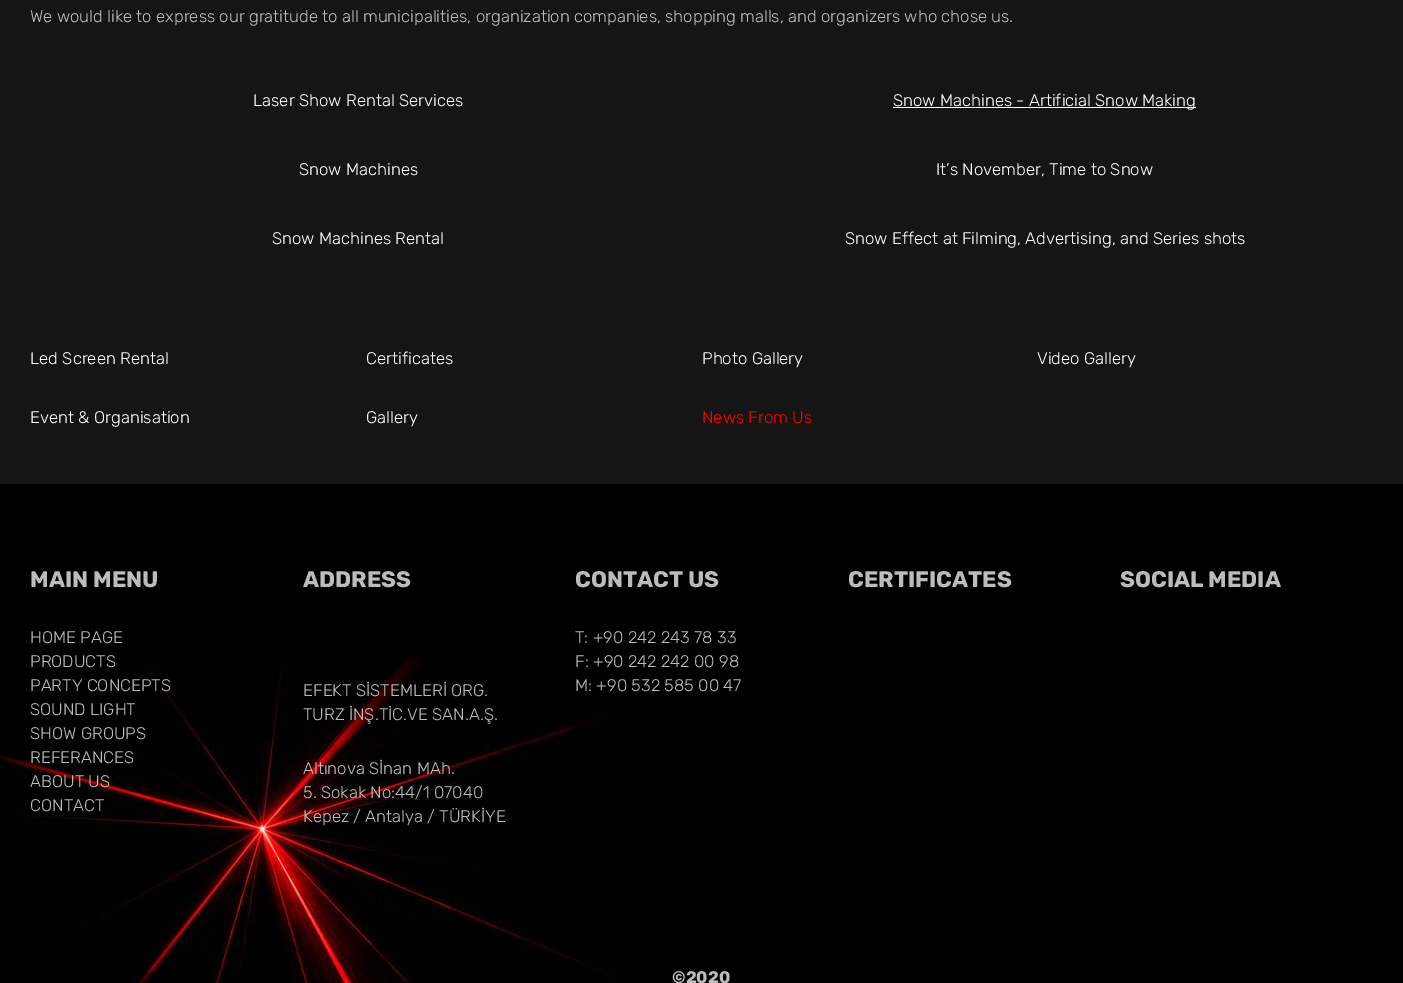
%!PS
<< /PageSize [1403 983] >> setpagedevice
/rgb { dup -16 bitshift 255 div exch dup -8 bitshift 255 and 255 div exch 255 and 255 div setrgbcolor } def
/font { [ exch dup neg 0 0 3 -1 roll 0 0 ] selectfont } def
/text { moveto show } def
/picture { 5 dict begin { /h /w /y /x /name } { exch def } forall
  gsave x y translate w h scale
  w h 8 [w 0 0 h 0 0] name (r) file false 3 colorimage grestore end } def
0 983 translate 1 -1 scale
4 setmiterlimit
/s1 { /Rubik-Light 16.8 font 16#BDBCBC rgb } def
/s2 { /Rubik-Light 16.8 font 16#FFFFFF rgb } def
/s3 { /Rubik-Light 16.8 font 16#FF0000 rgb } def
/s4 { /Rubik-Bold 22.5 font 16#BDBCBC rgb } def
/s5 { /Rubik-Bold 16.8 font 16#BDBCBC rgb } def
16#000000 rgb
0 0 1403 983 rectfill
16#151515 rgb
0 0 1403 484 rectfill
s1
(We would like to express our gratitude to all municipalities, organization companies, shopping malls, and organizers who chose us.) 30 22 text
s2
(Laser Show Rental Services) 253 106 text
893 107 303 1 rectfill
(Snow Machines - Artificial Snow Making) 893 106 text
(Snow Machines) 299 175 text
(It’s November, Time to Snow) 936 175 text
(Snow Machines Rental) 272 244 text
(Snow Effect at Filming, Advertising, and Series shots) 845 244 text
(Led Screen Rental) 30 364 text
(Certificates) 366 364 text
(Photo Gallery) 702 364 text
(Video Gallery) 1037 364 text
(Event & Organisation) 30 423 text
(Gallery) 366 423 text
s3
(News From Us) 702 423 text
(pic1.raw) 0 654 616 329 picture
s4
(MAIN MENU) 30 587 text
s1
(HOME PAGE) 30 643 text
(PRODUCTS) 30 667 text
(PARTY CONCEPTS) 30 691 text
(SOUND LIGHT) 30 715 text
(SHOW GROUPS) 30 739 text
(REFERANCES) 30 763 text
(ABOUT US) 30 787 text
(CONTACT) 30 811 text
s4
(ADDRESS) 303 587 text
s1
(EFEKT SİSTEMLERİ ORG.) 303 696 text
(TURZ İNŞ.TİC.VE SAN.A.Ş.) 303 720 text
(Altınova Sİnan MAh.) 303 774 text
(5. Sokak No:44/1 07040) 303 798 text
(Kepez / Antalya / TÜRKİYE) 303 822 text
s4
(CONTACT US) 575 587 text
s1
(T: +90 242 243 78 33) 575 643 text
(F: +90 242 242 00 98) 575 667 text
(M: +90 532 585 00 47) 575 691 text
s4
(CERTIFICATES) 848 587 text
(SOCIAL MEDIA) 1120 587 text
s5
(©2020) 672 983 text
showpage
